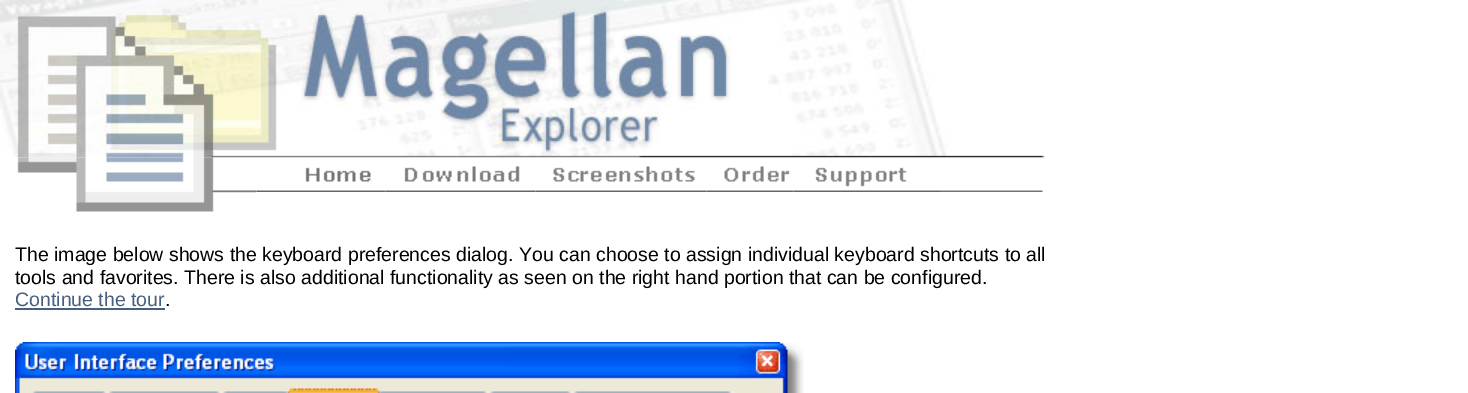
%!PS
<< /PageSize [1468 393] >> setpagedevice
/rgb { dup -16 bitshift 255 div exch dup -8 bitshift 255 and 255 div exch 255 and 255 div setrgbcolor } def
/font { [ exch dup neg 0 0 3 -1 roll 0 0 ] selectfont } def
/text { moveto show } def
/picture { 5 dict begin { /h /w /y /x /name } { exch def } forall
  gsave x y translate w h scale
  w h 8 [w 0 0 h 0 0] name (r) file false 3 colorimage grestore end } def
0 393 translate 1 -1 scale
4 setmiterlimit
/s1 { /LiberationSans-Regular 19.5 font 16#000000 rgb } def
/s2 { /LiberationSans-Regular 19.5 font 16#48607F rgb } def
16#FFFFFF rgb
0 0 1468 393 rectfill
(pic1.raw) 0 0 1045 158 picture
(pic2.raw) 17 157 240 55 picture
(pic3.raw) 256 157 130 35 picture
(pic4.raw) 385 157 151 35 picture
(pic5.raw) 535 157 172 35 picture
(pic6.raw) 706 157 88 35 picture
(pic7.raw) 793 157 251 35 picture
s1
(The image below shows the keyboard preferences dialog. You can choose to assign individual keyboard shortcuts to all) 15 261 text
(tools and favorites. There is also additional functionality as seen on the right hand portion that can be configured.) 15 284 text
s2
(Continue the tour) 15 306 text
15 308 150 2 rectfill
s1
(.) 165 306 text
(pic8.raw) 15 342 789 51 picture
showpage
